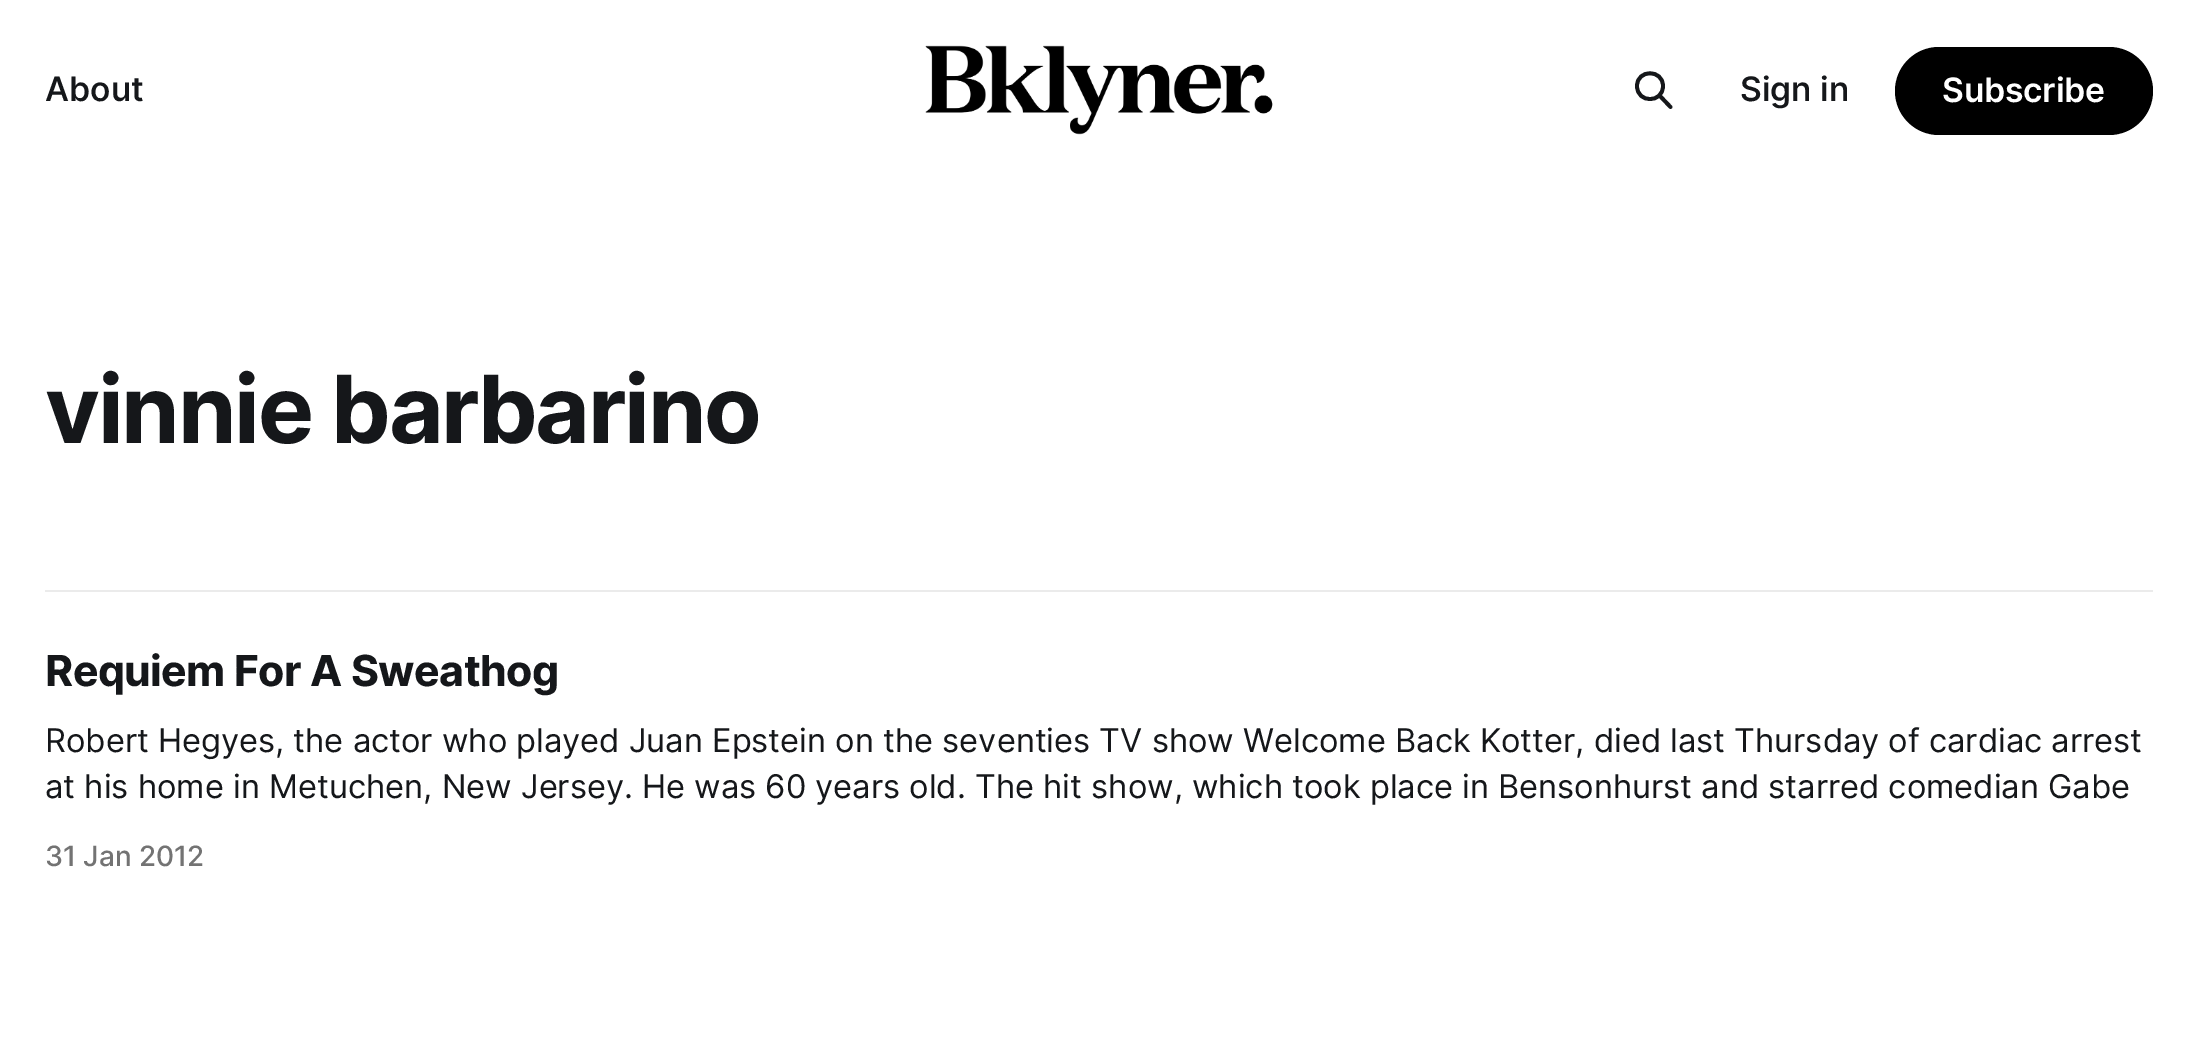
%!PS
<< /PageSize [2197 1061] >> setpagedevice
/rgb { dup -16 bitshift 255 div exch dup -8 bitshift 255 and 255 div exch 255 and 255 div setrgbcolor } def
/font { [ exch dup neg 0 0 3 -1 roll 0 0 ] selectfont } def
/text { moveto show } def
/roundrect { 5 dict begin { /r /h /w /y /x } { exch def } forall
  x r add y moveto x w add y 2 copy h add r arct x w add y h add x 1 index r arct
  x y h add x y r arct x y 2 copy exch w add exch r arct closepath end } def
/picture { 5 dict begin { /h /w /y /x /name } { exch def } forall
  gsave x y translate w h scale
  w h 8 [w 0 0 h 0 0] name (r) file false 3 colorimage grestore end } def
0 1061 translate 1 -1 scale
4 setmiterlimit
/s1 { /Inter-Medium 33.75 font 16#15171A rgb } def
/s2 { /Inter-Regular 32.62 font 16#15171A rgb } def
16#FFFFFF rgb
0 0 2197 1061 rectfill
s1
(About) 45 101 text
(pic1.raw) 925 45 348 90 picture
3.8 setlinewidth
1 setlinecap
1 setlinejoin
1670.5 107 moveto 1659.5 95.5 lineto 1663 86 moveto 1663 103.5 1637 103.5 1637 86 curveto 1637 69 1663 69 1663 86 curveto closepath stroke
(Sign in) 1740 101 text
16#000000 rgb
1895 47 258 88 44 roundrect fill
/Inter-SemiBold 33.75 font
16#FFFFFF rgb
1942 102 moveto -0.25 0 (Subscribe) ashow
16#EBEBEB rgb
45 590 2108 2 rectfill
/Inter-Bold 94 font
16#15171A rgb
45 443 moveto -2.1 0 (vinnie barbarino) ashow
/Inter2-Bold 42.75 font
45 686 moveto -0.6 0 (Requiem For A Sweathog) ashow
s2
(Robert Hegyes, the actor who played Juan Epstein on the seventies TV show Welcome Back Kotter, died last Thursday of cardiac arrest) 45 752 text
(at his home in Metuchen, New Jersey. He was 60 years old. The hit show, which took place in Bensonhurst and starred comedian Gabe) 45 798 text
/Inter2-Medium 28 font
16#737373 rgb
45 866 moveto -0.1 0 (31 Jan 2012) ashow
showpage
